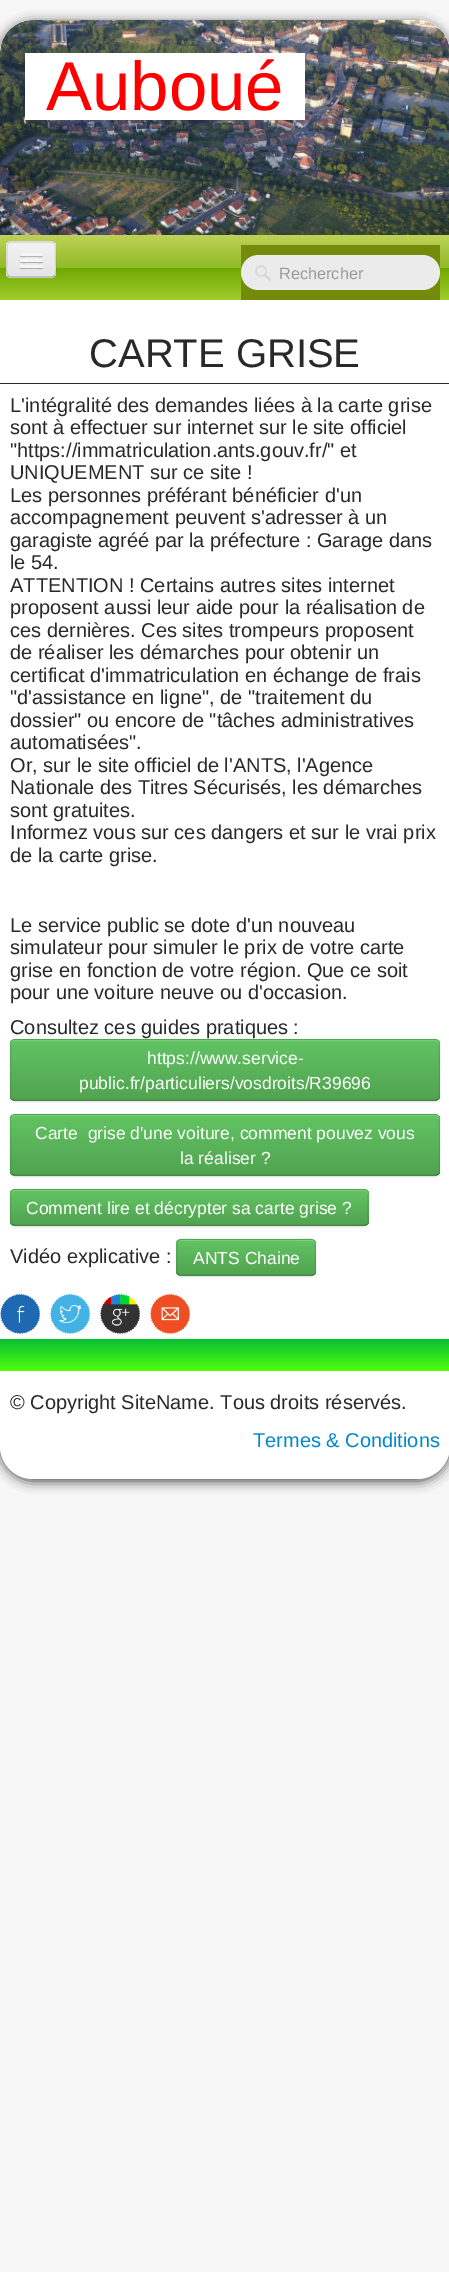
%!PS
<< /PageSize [449 2272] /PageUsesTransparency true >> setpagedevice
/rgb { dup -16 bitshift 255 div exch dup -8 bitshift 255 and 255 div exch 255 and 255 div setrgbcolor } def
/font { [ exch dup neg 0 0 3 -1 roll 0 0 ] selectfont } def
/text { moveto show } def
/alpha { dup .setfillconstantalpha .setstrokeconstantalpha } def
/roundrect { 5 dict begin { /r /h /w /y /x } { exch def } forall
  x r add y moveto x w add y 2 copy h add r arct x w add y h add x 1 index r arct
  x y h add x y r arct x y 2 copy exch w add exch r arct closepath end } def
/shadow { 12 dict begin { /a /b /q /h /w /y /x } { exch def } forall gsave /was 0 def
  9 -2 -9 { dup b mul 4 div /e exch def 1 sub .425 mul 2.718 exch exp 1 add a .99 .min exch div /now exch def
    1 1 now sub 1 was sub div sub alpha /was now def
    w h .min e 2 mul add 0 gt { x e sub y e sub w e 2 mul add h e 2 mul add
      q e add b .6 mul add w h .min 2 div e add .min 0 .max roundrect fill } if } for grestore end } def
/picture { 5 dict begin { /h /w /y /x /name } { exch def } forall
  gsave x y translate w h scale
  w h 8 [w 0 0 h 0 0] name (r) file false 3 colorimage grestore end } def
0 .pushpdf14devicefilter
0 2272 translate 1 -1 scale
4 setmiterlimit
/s1 { /LiberationSans-Regular 69 font 16#FF0000 rgb } def
/s2 { /LiberationSans-Regular 16.25 font 16#999999 rgb } def
/s3 { /LiberationSans-Regular 40 font 16#292929 rgb } def
/s4 { /LiberationSans-Regular 20 font 16#292929 rgb } def
/s5 { /LiberationSans-Regular 17.5 font 16#FFFFFF rgb } def
/s6 { /LiberationSans-Regular 20 font 16#0088CC rgb } def
16#F7F7F7 rgb
0 0 449 2272 rectfill
16#000000 rgb
0 23 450 1458 33 6 0.75 shadow
16#FFFFFF rgb
0 20 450 1459 33 roundrect fill
(pic1.raw) 0 20 449 215 picture
25 53 280 67 rectfill
s1
(A) 46 110 text
(uboué) 92 110 text
gsave 0 235 moveto 449 235 lineto 449 300 lineto 0 300 lineto closepath clip newpath
<< /ShadingType 2 /ColorSpace /DeviceRGB /Coords [225 235 225 300] /Extend [true true] /Function << /FunctionType 3 /Domain [0 1] /Functions [<< /FunctionType 2 /Domain [0 1] /C0 [0.749 0.824 0.337] /C1 [0.565 0.733 0.165] /N 1 >> << /FunctionType 2 /Domain [0 1] /C0 [0.565 0.733 0.165] /C1 [0.439 0.659 0] /N 1 >> << /FunctionType 2 /Domain [0 1] /C0 [0.439 0.659 0] /C1 [0.627 0.804 0.176] /N 1 >>] /Bounds [0.5 0.51] /Encode [0 1 0 1 0 1] >> >> shfill grestore
0.07 alpha
16#FFFFFF rgb
6 246 moveto 6 261 lineto 6 265 5 275 7 278 curveto 10 279 lineto 52 279 lineto 54 279 55 277 56 276 curveto 56 274 lineto 55 276 53 278 51 278 curveto 11 278 lineto 8 278 6 275 6 272 curveto closepath fill
1 alpha
16#EDEDED rgb
6 241 50 37 5 roundrect fill
gsave
6 241 50 37 5 roundrect clip newpath
gsave 6 243 moveto 56 243 lineto 56 276 lineto 6 276 lineto closepath clip newpath
<< /ShadingType 2 /ColorSpace /DeviceRGB /Coords [31 243 31 276] /Extend [true true] /Function << /FunctionType 2 /Domain [0 1] /C0 [0.949 0.949 0.949] /C1 [0.898 0.898 0.898] /N 1 >> >> shfill grestore
grestore
0.25 alpha
16#000000 rgb
1.2 setlinewidth
54.5 275.5 moveto 53.5 276.5 52.5 277 51 277 curveto 11.5 277 lineto 10 277 9 276.5 8 275.5 curveto stroke
0.1 alpha
8 275.5 moveto 5.5 273 7 262.5 7 259.5 curveto 7 250.5 lineto 7 247.5 6 243 10.5 242 curveto 52 242 lineto 56.5 243 55.5 247.5 55.5 250.5 curveto 55.5 259.5 lineto 55.5 262.5 57 273 54.5 275.5 curveto stroke
1 alpha
16#B2B2B2 rgb
20.5 254.5 moveto 20 256 lineto 20.5 258 24 257 25 257 curveto 38 257 lineto 39.5 257 43 258 43 255.5 curveto 42.5 254.5 lineto 41.5 255 lineto 39.5 255.5 21 255.5 20.5 254.5 curveto closepath fill
16#F5F5F5 rgb
20 253 23 3 1.5 roundrect fill
16#B0B0B0 rgb
20 260.5 moveto 18.5 263.5 24.5 263 25 263 curveto 38 263 lineto 39 263 42.5 264 43 262 curveto 43 261.5 43 260.5 42.5 260.5 curveto 41.5 261 lineto 21 261 lineto closepath fill
16#F5F5F5 rgb
20 259 23 3 1.5 roundrect fill
16#AEAEAE rgb
20 267 moveto 19 269.5 24 269 25 269 curveto 38 269 lineto 39 269 42.5 270 43 268 curveto 43 267.5 43 266.5 42.5 266.5 curveto 42.5 267 42 267.5 41 267.5 curveto 21 267.5 lineto 21 267.5 20.5 267 20 267 curveto closepath fill
16#F5F5F5 rgb
20 265 23 3 1.5 roundrect fill
16#748A0A rgb
241 245 199 55 rectfill
16#EBEBEB rgb
241 255 199 35 17.5 roundrect fill
(pic2.raw) 255 265 16 16 picture
s2
(Rechercher) 279 279 text
16#292929 rgb
0 383 449 1 rectfill
s3
(CARTE GRISE) 89 367 text
s4
(L'intégralité des demandes liées à la carte grise) 10 412 text
(sont à effectuer sur internet sur le site officiel) 10 434 text
("https://immatriculation.ants.gouv.fr/" et) 10 457 text
(UNIQUEMENT sur ce site !) 10 479 text
(Les personnes préférant bénéficier d'un) 10 502 text
(accompagnement peuvent s'adresser à un) 10 524 text
(garagiste agréé par la préfecture : Garage dans) 10 547 text
(le 54.) 10 569 text
(ATTENTION ! Certains autres sites internet) 10 592 text
(proposent aussi leur aide pour la réalisation de) 10 614 text
(ces dernières. Ces sites trompeurs proposent) 10 637 text
(de réaliser les démarches pour obtenir un) 10 659 text
(certificat d'immatriculation en échange de frais) 10 682 text
("d'assistance en ligne", de "traitement du) 10 704 text
(dossier" ou encore de "tâches administratives) 10 727 text
(automatisées".) 10 749 text
(Or, sur le site officiel de l'ANTS, l'Agence) 10 772 text
(Nationale des Titres Sécurisés, les démarches) 10 794 text
(sont gratuites.) 10 817 text
(Informez vous sur ces dangers et sur le vrai prix) 10 839 text
(de la carte grise.) 10 862 text
(Le service public se dote d'un nouveau) 10 932 text
(simulateur pour simuler le prix de votre carte) 10 954 text
(grise en fonction de votre région. Que ce soit) 10 977 text
(pour une voiture neuve ou d'occasion.) 10 999 text
(Consultez ces guides pratiques :) 10 1034 text
16#000000 rgb
10 1040 430 63 5 1 0.05 shadow
16#5BB75B rgb
10 1039 430 62 5 roundrect fill
gsave
10 1039 430 62 5 roundrect clip newpath
gsave 10 1040 moveto 440 1040 lineto 440 1100 lineto 10 1100 lineto closepath clip newpath
<< /ShadingType 2 /ColorSpace /DeviceRGB /Coords [225 1040 225 1100] /Extend [true true] /Function << /FunctionType 2 /Domain [0 1] /C0 [0.384 0.769 0.384] /C1 [0.318 0.639 0.318] /N 1 >> >> shfill grestore
grestore
16#81D081 rgb
15 1041 moveto 435 1041 lineto 437 1041 439 1043 439 1045 curveto 439 1042 438 1040 435 1040 curveto 15 1040 lineto 14 1040 12 1041 12 1042 curveto 11 1045 lineto 11 1043 13 1041 15 1041 curveto closepath fill
0.25 alpha
16#000000 rgb
438 1099.5 moveto 435 1100.5 lineto 15 1100.5 lineto 12 1099.5 lineto stroke
0.1 alpha
12 1099.5 moveto 11 1098.5 10.5 1097.5 10.5 1096 curveto 10.5 1044 lineto 10.5 1042.5 11 1041.5 12 1040.5 curveto 12.5 1040 14 1039.5 15 1039.5 curveto 435 1039.5 lineto 436 1039.5 437.5 1040 438 1040.5 curveto 439 1041.5 439.5 1042.5 439.5 1044 curveto 439.5 1096 lineto 439.5 1097.5 439 1098.5 438 1099.5 curveto stroke
1 alpha
s5
(https://www.service-) 147 1064 text
(public.fr/particuliers/vosdroits/R39696) 79 1089 text
16#000000 rgb
10 1115 430 63 5 1 0.05 shadow
16#5BB75B rgb
10 1114 430 62 5 roundrect fill
gsave
10 1114 430 62 5 roundrect clip newpath
gsave 10 1115 moveto 440 1115 lineto 440 1175 lineto 10 1175 lineto closepath clip newpath
<< /ShadingType 2 /ColorSpace /DeviceRGB /Coords [225 1115 225 1175] /Extend [true true] /Function << /FunctionType 2 /Domain [0 1] /C0 [0.384 0.769 0.384] /C1 [0.318 0.639 0.318] /N 1 >> >> shfill grestore
grestore
16#81D081 rgb
15 1116 moveto 435 1116 lineto 437 1116 439 1118 439 1120 curveto 439 1117 438 1115 435 1115 curveto 15 1115 lineto 14 1115 12 1116 12 1117 curveto 11 1120 lineto 11 1118 13 1116 15 1116 curveto closepath fill
0.25 alpha
16#000000 rgb
438 1174.5 moveto 435 1175.5 lineto 15 1175.5 lineto 12 1174.5 lineto stroke
0.1 alpha
12 1174.5 moveto 11 1173.5 10.5 1172.5 10.5 1171 curveto 10.5 1119 lineto 10.5 1117.5 11 1116.5 12 1115.5 curveto 12.5 1115 14 1114.5 15 1114.5 curveto 435 1114.5 lineto 436 1114.5 437.5 1115 438 1115.5 curveto 439 1116.5 439.5 1117.5 439.5 1119 curveto 439.5 1171 lineto 439.5 1172.5 439 1173.5 438 1174.5 curveto stroke
1 alpha
s5
(Carte  grise d'une voiture, comment pouvez vous) 35 1139 text
(la réaliser ?) 180 1164 text
16#000000 rgb
10 1190 359 38 5 1 0.05 shadow
16#5BB75B rgb
10 1189 359 37 5 roundrect fill
gsave
10 1189 359 37 5 roundrect clip newpath
gsave 10 1190 moveto 369 1190 lineto 369 1225 lineto 10 1225 lineto closepath clip newpath
<< /ShadingType 2 /ColorSpace /DeviceRGB /Coords [189 1190 189 1225] /Extend [true true] /Function << /FunctionType 2 /Domain [0 1] /C0 [0.384 0.769 0.384] /C1 [0.318 0.639 0.318] /N 1 >> >> shfill grestore
grestore
16#81D081 rgb
15 1191 moveto 364 1191 lineto 366 1191 368 1193 368 1195 curveto 368 1192 367 1190 364 1190 curveto 14 1190 lineto 12 1192 lineto 11 1195 lineto 11 1193 13 1191 15 1191 curveto closepath fill
0.25 alpha
16#000000 rgb
367 1224.5 moveto 364 1225.5 lineto 15 1225.5 lineto 12 1224.5 lineto stroke
0.1 alpha
12 1224.5 moveto 10 1222.5 10.5 1219 10.5 1216.5 curveto 10.5 1198.5 lineto 10.5 1195 10 1190.5 14 1189.5 curveto 364.5 1189.5 lineto 369 1190.5 368 1195 368 1198.5 curveto 368 1216.5 lineto 368 1219 369 1222.5 367 1224.5 curveto stroke
1 alpha
s5
(Comment lire et décrypter sa carte grise ?) 26 1214 text
s4
(Vidéo explicative :) 10 1263 text
16#000000 rgb
176 1240 140 38 5 1 0.05 shadow
16#5BB75B rgb
176 1239 140 37 5 roundrect fill
gsave
176 1239 140 37 5 roundrect clip newpath
gsave 176 1240 moveto 316 1240 lineto 316 1275 lineto 176 1275 lineto closepath clip newpath
<< /ShadingType 2 /ColorSpace /DeviceRGB /Coords [246 1240 246 1275] /Extend [true true] /Function << /FunctionType 2 /Domain [0 1] /C0 [0.384 0.769 0.384] /C1 [0.318 0.639 0.318] /N 1 >> >> shfill grestore
grestore
16#81D081 rgb
181 1241 moveto 311 1241 lineto 313 1241 315 1243 315 1245 curveto 315 1244 lineto 315 1242 313 1240 311 1240 curveto 182 1240 lineto 180 1240 178 1242 178 1244 curveto 178 1245 lineto 178 1243 179 1241 181 1241 curveto closepath fill
0.25 alpha
16#000000 rgb
314.5 1274.5 moveto 311.5 1275.5 lineto 203 1275.5 lineto 181 1275.5 lineto 178 1274.5 lineto stroke
0.1 alpha
178 1274.5 moveto 176 1272.5 177 1269 177 1266.5 curveto 177 1257.5 lineto 177 1234 175 1239.5 203 1239.5 curveto 289.5 1239.5 lineto 317.5 1239.5 315.5 1234 315.5 1257.5 curveto 315.5 1266.5 lineto 315.5 1269 316.5 1272.5 314.5 1274.5 curveto stroke
1 alpha
s5
(ANTS Chaine) 193 1264 text
(pic3.raw) 0 1293 40 41 picture
(pic4.raw) 50 1293 40 41 picture
(pic5.raw) 100 1293 40 41 picture
(pic6.raw) 150 1293 40 41 picture
gsave 0 1339 moveto 449 1339 lineto 449 1371 lineto 0 1371 lineto closepath clip newpath
<< /ShadingType 2 /ColorSpace /DeviceRGB /Coords [225 1339 225 1371] /Extend [true true] /Function << /FunctionType 2 /Domain [0 1] /C0 [0.035 0.745 0.2] /C1 [0.314 1 0.039] /N 1 >> >> shfill grestore
s4
(© Copyright SiteName. Tous droits réservés.) 10 1409 text
s6
(Termes & Conditions) 253 1447 text
.poppdf14devicefilter showpage
